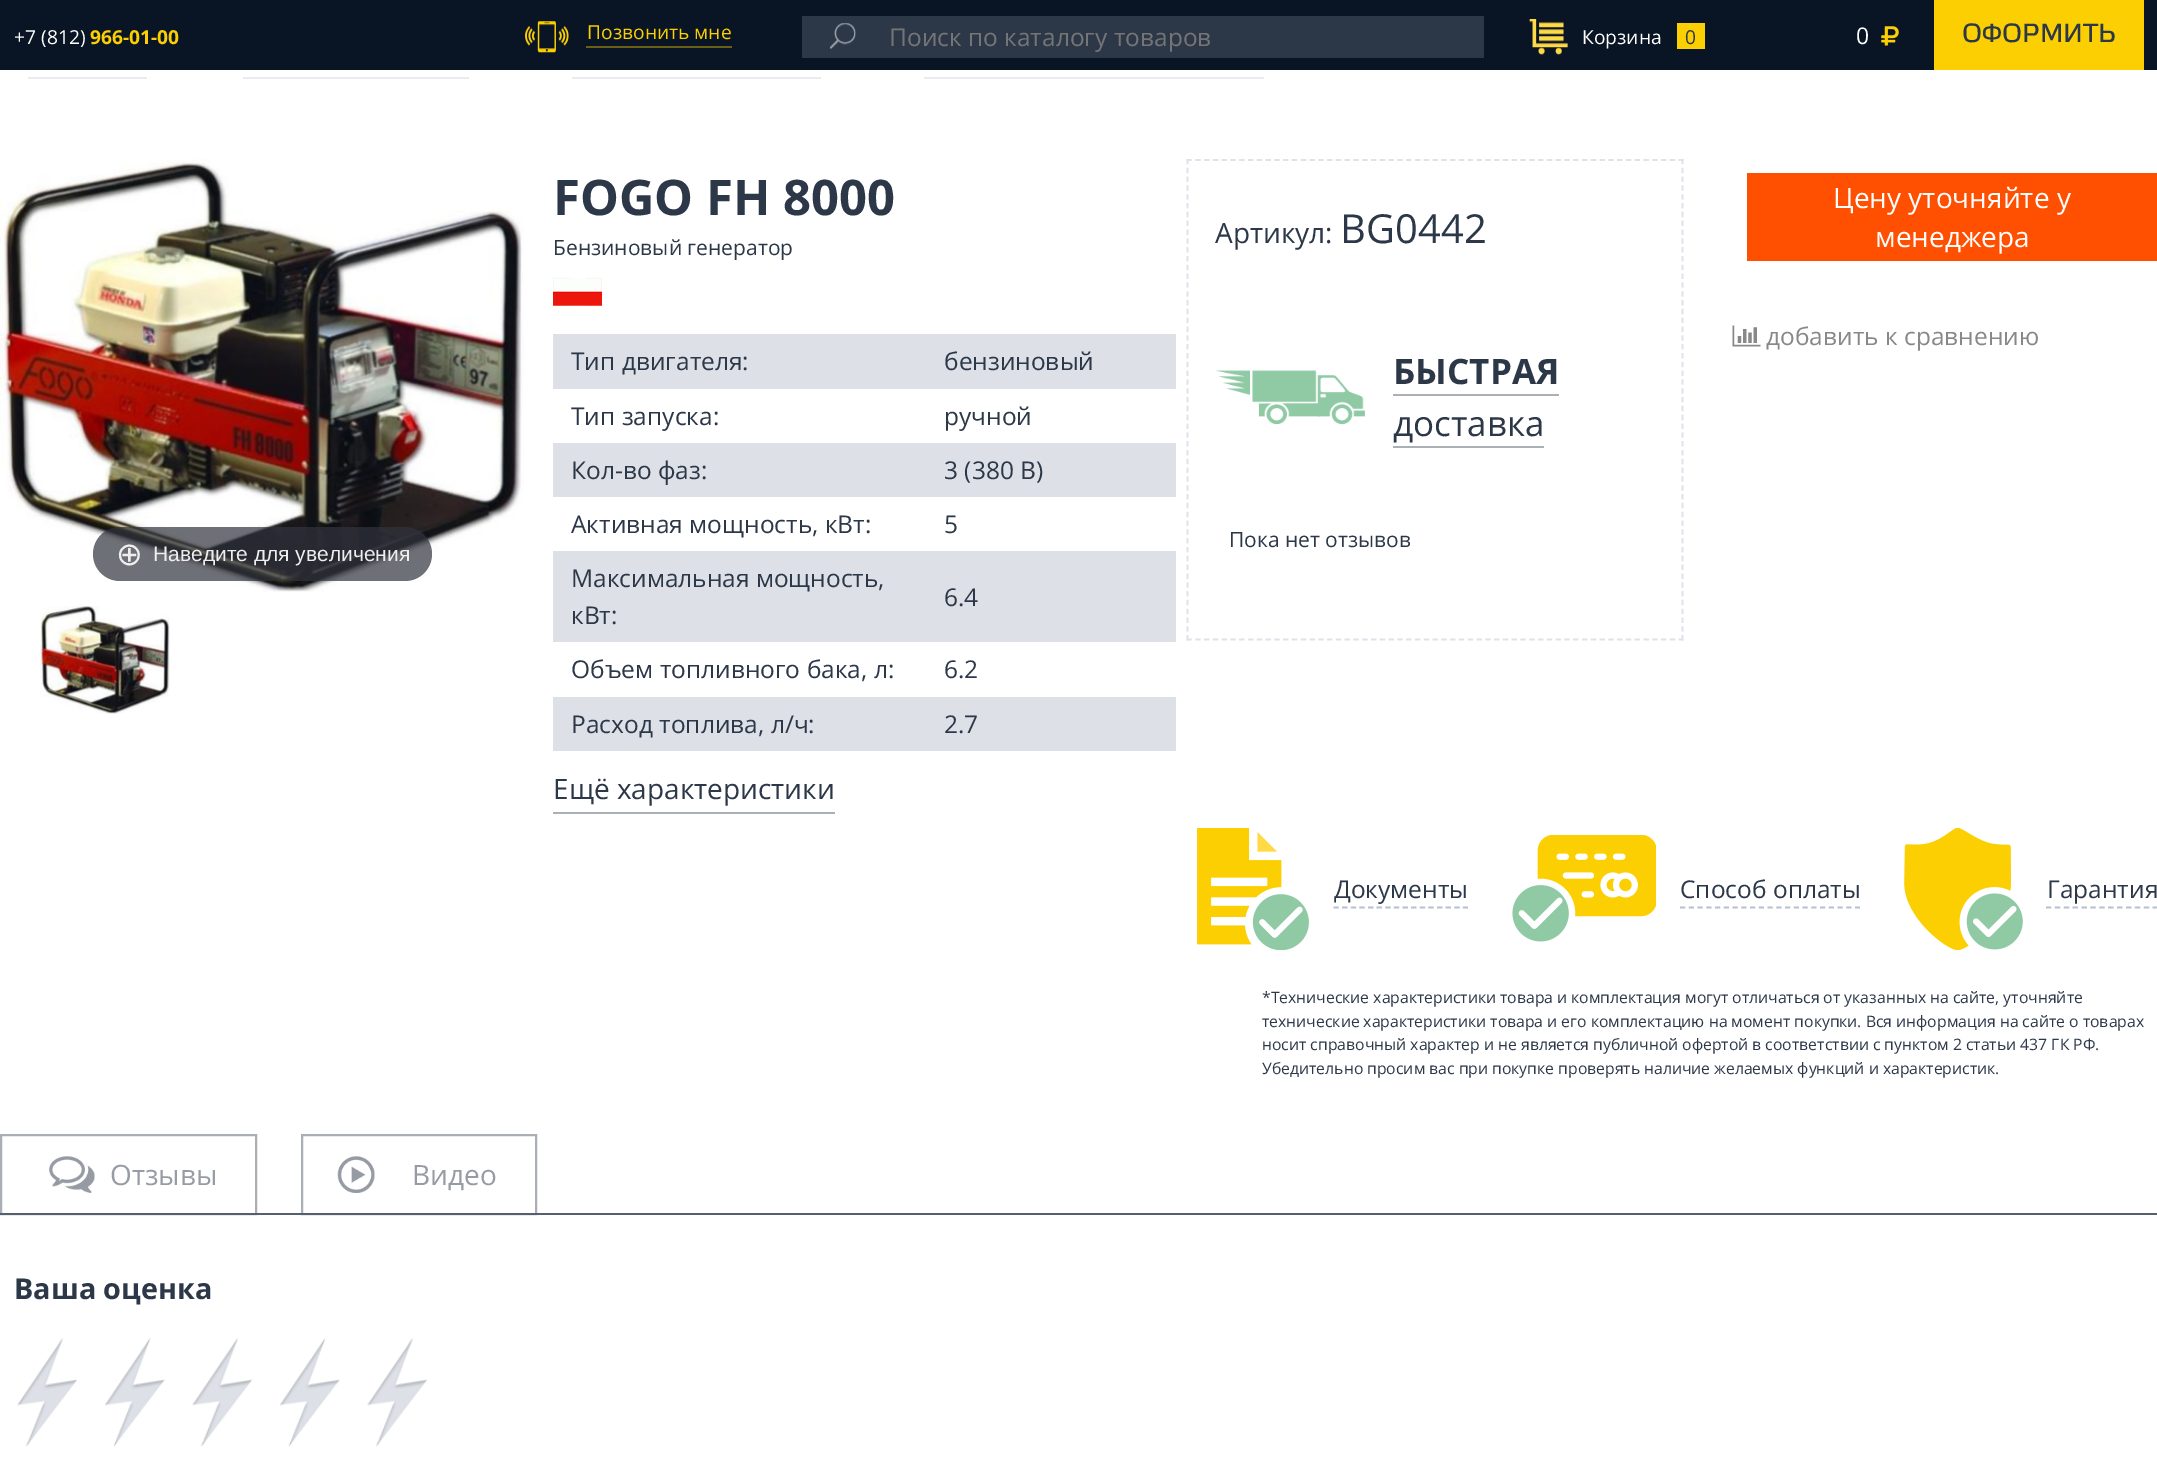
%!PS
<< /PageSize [2157 1477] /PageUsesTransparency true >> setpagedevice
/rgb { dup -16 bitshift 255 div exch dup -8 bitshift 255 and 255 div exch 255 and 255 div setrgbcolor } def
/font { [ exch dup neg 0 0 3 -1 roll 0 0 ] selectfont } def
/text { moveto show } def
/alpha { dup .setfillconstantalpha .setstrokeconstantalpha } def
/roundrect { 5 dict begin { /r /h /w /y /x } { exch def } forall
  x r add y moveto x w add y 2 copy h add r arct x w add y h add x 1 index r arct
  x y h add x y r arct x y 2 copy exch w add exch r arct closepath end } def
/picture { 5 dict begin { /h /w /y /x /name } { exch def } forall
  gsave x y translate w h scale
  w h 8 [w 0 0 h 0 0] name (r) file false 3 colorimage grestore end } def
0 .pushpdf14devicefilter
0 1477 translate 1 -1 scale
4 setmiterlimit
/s1 { /OpenSans-Regular 19.25 font 16#FFFFFF rgb } def
/s2 { /OpenSans-Bold 19.25 font 16#FCCF03 rgb } def
/s3 { /OpenSans-Regular 19.25 font 16#FCCF03 rgb } def
/s4 { /OpenSans-Regular 24.5 font 16#757575 rgb } def
/s5 { /OpenSans-Regular 19.25 font 16#2C3748 rgb } def
/s6 { /OpenSans-Regular 23 font 16#FFFFFF rgb } def
/s7 { /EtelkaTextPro-Regular 26.25 font 16#2C3748 rgb } def
/s8 { /OpenSans-Bold 49 font 16#2C3748 rgb } def
/s9 { /OpenSans-Regular 21 font 16#2C3748 rgb } def
/s10 { /OpenSans-Regular 24.5 font 16#2C3748 rgb } def
/s11 { /OpenSans-Regular 28 font 16#2C3748 rgb } def
/s12 { /OpenSans-Regular 40 font 16#2C3748 rgb } def
/s13 { /OpenSans-Bold 35 font 16#2C3748 rgb } def
/s14 { /OpenSans-Regular 35 font 16#2C3748 rgb } def
/s15 { /OpenSans-Regular 28 font 16#FFFFFF rgb } def
/s16 { /OpenSans-Regular 24.5 font 16#888888 rgb } def
/s17 { /DejaVuSans-Regular 32 font 16#EEEEEE rgb } def
/s18 { /LiberationSans-Regular 21 font 16#EEEEEE rgb } def
/s19 { /OpenSans-Regular 15.75 font 16#2C3748 rgb } def
/s20 { /OpenSans-Regular 28 font 16#969BA4 rgb } def
/s21 { /OpenSans-Bold 28.75 font 16#2C3748 rgb } def
16#FFFFFF rgb
0 0 2157 1477 rectfill
16#091424 rgb
0 0 2157 70 rectfill
s1
(+7 \(812\)) 14 44 text
s2
(966-01-00) 90 44 text
(pic1.raw) 525 21 44 32 picture
s3
(Позвонить мне) 587 39 text
16#6A5F17 rgb
586 46 146 2 rectfill
16#2C3748 rgb
802 16 682 42 rectfill
(pic2.raw) 830 23 26 27 picture
s4
(Поиск по каталогу товаров) 889 46 text
(pic3.raw) 1529 19 39 36 picture
s1
(Корзина) 1582 44 text
16#FCCF03 rgb
1677 23 28 26 rectfill
s5
(0) 1685 44 text
s6
(0) 1856 44 text
(pic4.raw) 1881 26 18 20 picture
16#FCCF03 rgb
1934 0 210 70 rectfill
s7
(ОФОРМИТЬ) 1962 42 text
16#E9EBEC rgb
28 77 119 2 rectfill
243 77 226 2 rectfill
572 77 249 2 rectfill
924 77 340 2 rectfill
s8
(FOGO FH 8000) 553 215 text
s9
(Бензиновый генератор) 553 255 text
(pic5.raw) 553 277 49 29 picture
16#DDE1E7 rgb
553 334 623 55 rectfill
s10
(Тип двигателя:) 571 370 text
(бензиновый) 944 370 text
(Тип запуска:) 571 425 text
(ручной) 944 425 text
16#DDE1E7 rgb
553 443 623 54 rectfill
s10
(Кол-во фаз:) 571 479 text
(3 \(380 В\)) 944 479 text
(Активная мощность, кВт:) 571 533 text
(5) 944 533 text
16#DDE1E7 rgb
553 551 623 91 rectfill
s10
(Максимальная мощность,) 571 587 text
(кВт:) 571 624 text
(6.4) 944 606 text
(Объем топливного бака, л:) 571 678 text
(6.2) 944 678 text
16#DDE1E7 rgb
553 697 623 54 rectfill
s10
(Расход топлива, л/ч:) 571 733 text
(2.7) 944 733 text
16#ABAFB6 rgb
553 812 282 2 rectfill
s11
(Ещё характеристики) 553 799 text
16#DFE3E9 rgb
1.8 setlinewidth
[5.25 3.54] 0 setdash
1186.5 160 moveto 1683.5 160 lineto stroke
[5.25 3.57] 0 setdash
1682.5 159 moveto 1682.5 640.5 lineto stroke
[5.25 3.54] 0 setdash
1186.5 639.5 moveto 1683.5 639.5 lineto stroke
[5.25 3.57] 0 setdash
1187.5 159 moveto 1187.5 640.5 lineto stroke
s11
(Артикул:) 1215 243 text
s12
(BG0442) 1340 243 text
(pic6.raw) 1215 370 150 55 picture
s13
(БЫСТРАЯ) 1393 384 text
16#ABAFB6 rgb
1393 394 166 2 rectfill
s14
(доставка) 1393 436 text
16#ABAFB6 rgb
1393 446 151 2 rectfill
s9
(Пока нет отзывов) 1229 547 text
16#FF4F00 rgb
1747 173 410 88 rectfill
s15
(Цену уточняйте у) 1833 208 text
(менеджера) 1875 247 text
(pic7.raw) 1732 325 29 22 picture
s16
(добавить к сравнению) 1766 345 text
(pic8.raw) 0 159 524 433 picture
0.7 alpha
16#31333D rgb
93 527 339 54 27 roundrect fill
1 alpha
s17
(⊕) 116 565 text
s18
(Наведите для увеличения) 153 561 text
(pic9.raw) 40 606 130 108 picture
(pic10.raw) 1197 828 112 122 picture
16#B7C1D1 rgb
[5.25 3.38] 0 setdash
1333.5 907.5 moveto 1468 907.5 lineto stroke
s10
(Документы) 1334 898 text
(pic11.raw) 1512 835 144 107 picture
16#B7C1D1 rgb
[5.25 3.5] 0 setdash
1680 907.5 moveto 1860 907.5 lineto stroke
s10
(Способ оплаты) 1680 898 text
(pic12.raw) 1904 828 119 122 picture
16#B7C1D1 rgb
[5.25 3.64] 0 setdash
2046 907.5 moveto 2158 907.5 lineto stroke
s10
(Гарантия) 2047 898 text
s19
(*Технические характеристики товара и комплектация могут отличаться от указанных на сайте, уточняйте) 1262 1003 text
(технические характеристики товара и его комплектацию на момент покупки. Вся информация на сайте о товарах) 1262 1027 text
(носит справочный характер и не является публичной офертой в соответствии с пунктом 2 статьи 437 ГК РФ.) 1262 1050 text
(Убедительно просим вас при покупке проверять наличие желаемых функций и характеристик.) 1262 1074 text
16#565F6D rgb
0 1213 2157 2 rectfill
(pic13.raw) 49 1156 46 37 picture
0.5 alpha
2 setlinewidth
[] 0 setdash
1 1135 255 79 rectstroke
1 alpha
s20
(Отзывы) 110 1185 text
(pic14.raw) 337 1156 38 37 picture
0.5 alpha
16#565F6D rgb
302 1135 234 79 rectstroke
1 alpha
s20
(Видео) 412 1185 text
s21
(Ваша оценка) 14 1299 text
(pic15.raw) 17 1338 60 109 picture
(pic16.raw) 105 1338 60 109 picture
(pic15.raw) 192 1338 60 109 picture
(pic16.raw) 280 1338 60 109 picture
(pic15.raw) 367 1338 60 109 picture
.poppdf14devicefilter showpage
